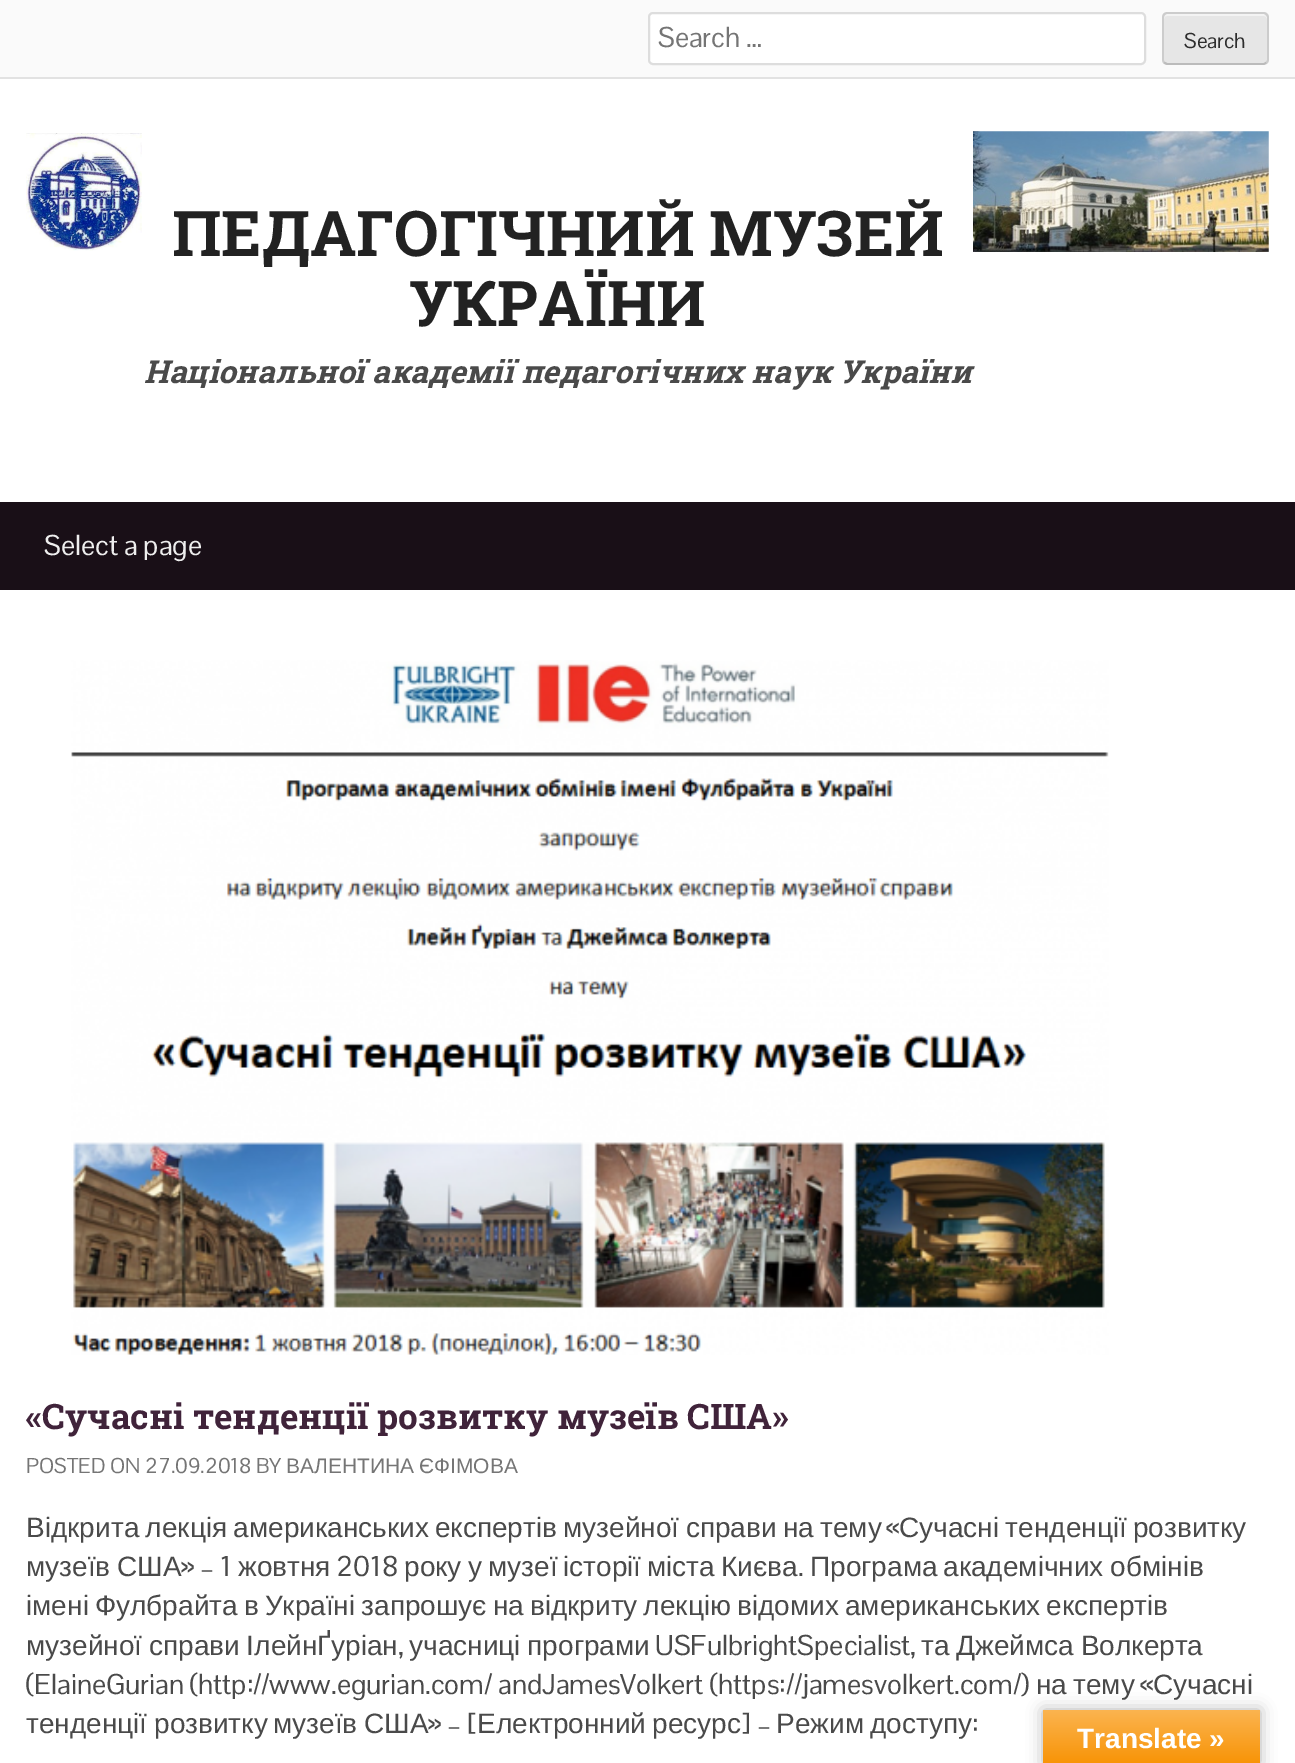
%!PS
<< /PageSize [1295 1763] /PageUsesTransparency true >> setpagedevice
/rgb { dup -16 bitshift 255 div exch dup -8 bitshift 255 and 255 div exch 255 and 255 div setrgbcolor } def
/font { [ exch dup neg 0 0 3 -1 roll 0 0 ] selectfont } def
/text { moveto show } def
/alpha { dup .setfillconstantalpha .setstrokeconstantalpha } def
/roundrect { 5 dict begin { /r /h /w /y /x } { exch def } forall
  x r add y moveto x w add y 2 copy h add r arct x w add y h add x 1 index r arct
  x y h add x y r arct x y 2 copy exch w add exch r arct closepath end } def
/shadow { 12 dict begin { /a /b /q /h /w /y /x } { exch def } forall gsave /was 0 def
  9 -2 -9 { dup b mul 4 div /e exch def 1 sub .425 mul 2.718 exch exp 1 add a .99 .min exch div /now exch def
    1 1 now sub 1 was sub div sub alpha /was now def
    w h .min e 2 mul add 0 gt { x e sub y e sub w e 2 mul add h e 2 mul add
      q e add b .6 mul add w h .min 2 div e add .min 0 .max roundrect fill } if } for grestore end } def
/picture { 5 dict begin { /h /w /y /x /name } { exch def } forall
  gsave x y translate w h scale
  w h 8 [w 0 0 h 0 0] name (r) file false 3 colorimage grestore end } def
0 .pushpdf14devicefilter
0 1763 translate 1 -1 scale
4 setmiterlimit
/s1 { /PontanoSans-Regular 28 font 16#757575 rgb } def
/s2 { /PontanoSans-Regular 21 font 16#2E2E2E rgb } def
/s3 { /RobotoSlab-Bold 63 font 16#222222 rgb } def
/s4 { /RobotoSlab-BoldItalic 31.5 font 16#4A4A4A rgb } def
/s5 { /PontanoSans-Regular 28 font 16#EEEEEE rgb } def
/s6 { /RobotoSlab-Bold 35 font 16#40233A rgb } def
/s7 { /PontanoSans-Regular 21 font 16#757575 rgb } def
/s8 { /PontanoSans-Regular 28 font 16#4A4A4A rgb } def
/s9 { /LiberationSans-Regular 28 font 16#4A4A4A rgb } def
/s10 { /LiberationSans-Bold 28 font 16#FFFFFF rgb } def
16#FFFFFF rgb
0 0 1295 1763 rectfill
16#FAFAFA rgb
0 0 1295 77 rectfill
16#E2E2E2 rgb
0 77 1295 2 rectfill
16#FFFFFF rgb
649 13 496 51 4 roundrect gsave fill grestore
16#DDDDDD rgb
2 setlinewidth
stroke
s1
(Search …) 658 47 text
16#E6E6E6 rgb
1162 12 107 53 5 roundrect fill
16#F3F3F3 rgb
1167 16 moveto 1264 16 lineto 1265 16 1267 17 1267 19 curveto 1267 10 1251 14 1247 14 curveto 1184 14 lineto 1180 14 1164 10 1164 19 curveto 1164 17 1165 16 1167 16 curveto closepath fill
16#BBBBBB rgb
1.8 setlinewidth
1266.5 62.5 moveto 1264 64 lineto 1167 64 lineto 1164 62.5 lineto stroke
16#CCCCCC rgb
1164 62.5 moveto 1163.5 62 1163 60.5 1163 59.5 curveto 1163 17.5 lineto 1163 16.5 1163.5 15 1164 14.5 curveto 1165 13.5 1166 13 1167 13 curveto 1263.5 13 lineto 1264.5 13 1266 13.5 1266.5 14.5 curveto 1267.5 15 1268 16.5 1268 17.5 curveto 1268 59.5 lineto 1268 60.5 1267.5 62 1266.5 62.5 curveto stroke
s2
(Search) 1184 48 text
(pic1.raw) 26 133 116 118 picture
s3
(ПЕДАГОГІЧНИЙ МУЗЕЙ) 172 256 text
(УКРАЇНИ) 409 326 text
s4
(Національної академії педагогічних наук України) 144 383 text
(pic2.raw) 973 131 296 121 picture
16#190F17 rgb
0 502 1295 88 rectfill
s5
(Select a page) 44 555 text
(pic3.raw) 71 660 1038 695 picture
s6
(«Сучасні тенденції розвитку музеїв США») 26 1429 text
s7
(POSTED ON 27.09.2018 BY) 26 1473 text
/LiberationSans-Regular 21 font
286 1473 moveto -1 0 32 (ВАЛЕНТИНА ЄФІМОВА) widthshow
/LiberationSans-Regular 28 font
16#4A4A4A rgb
26 1537 moveto -1.5 0 32 (Відкрита лекція американських експертів музейної справи на тему) widthshow
s8
(«) 886 1537 text
/LiberationSans-Regular 28 font
899 1537 moveto -1.5 0 32 (Сучасні тенденції розвитку) widthshow
(музеїв) 26 1576 text
(США) 117 1576 text
s8
(» – 1) 181 1576 text
s9
(жовтня) 238 1576 text
s8
(2018) 336 1576 text
s9
(року) 404 1576 text
(у) 468 1576 text
(музеї) 488 1576 text
(історії) 563 1576 text
(міста) 647 1576 text
(Києва) 721 1576 text
s8
(.) 798 1576 text
s9
(Програма) 810 1576 text
(академічних) 943 1576 text
(обмінів) 1110 1576 text
26 1615 moveto -1.75 0 32 (імені Фулбрайта в Україні запрошує на відкриту лекцію відомих американських експертів) widthshow
26 1655 moveto -1 0 32 (музейної справи ІлейнҐуріан) widthshow
s8
(,) 398 1655 text
/LiberationSans-Regular 28 font
409 1655 moveto -1 0 32 (учасниці програми) widthshow
s8
(USFulbrightSpecialist,) 655 1655 text
/LiberationSans-Regular 28 font
921 1655 moveto -1 0 32 (та Джеймса Волкерта) widthshow
s8
(\(ElaineGurian \(http://www.egurian.com/ andJamesVolkert \(https://jamesvolkert.com/\)) 26 1694 text
s9
(на) 1036 1694 text
(тему) 1073 1694 text
s8
(«) 1140 1694 text
s9
(Сучасні) 1153 1694 text
(тенденції) 26 1733 text
(розвитку) 154 1733 text
(музеїв) 273 1733 text
(США) 364 1733 text
s8
(» – [) 428 1733 text
s9
(Електронний) 477 1733 text
(ресурс) 652 1733 text
s8
(] –) 741 1733 text
s9
(Режим) 776 1733 text
(доступу) 870 1733 text
s8
(:) 972 1733 text
16#000000 rgb
1043 1710 217 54 0 8 0.3 shadow
gsave 1043 1710 moveto 1260 1710 lineto 1260 1763 lineto 1043 1763 lineto closepath clip newpath
<< /ShadingType 2 /ColorSpace /DeviceRGB /Coords [1152 1710 1152 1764] /Extend [true true] /Function << /FunctionType 2 /Domain [0 1] /C0 [0.984 0.706 0.314] /C1 [0.973 0.58 0.024] /N 1 >> >> shfill grestore
s10
(Translate ») 1077 1748 text
.poppdf14devicefilter showpage
